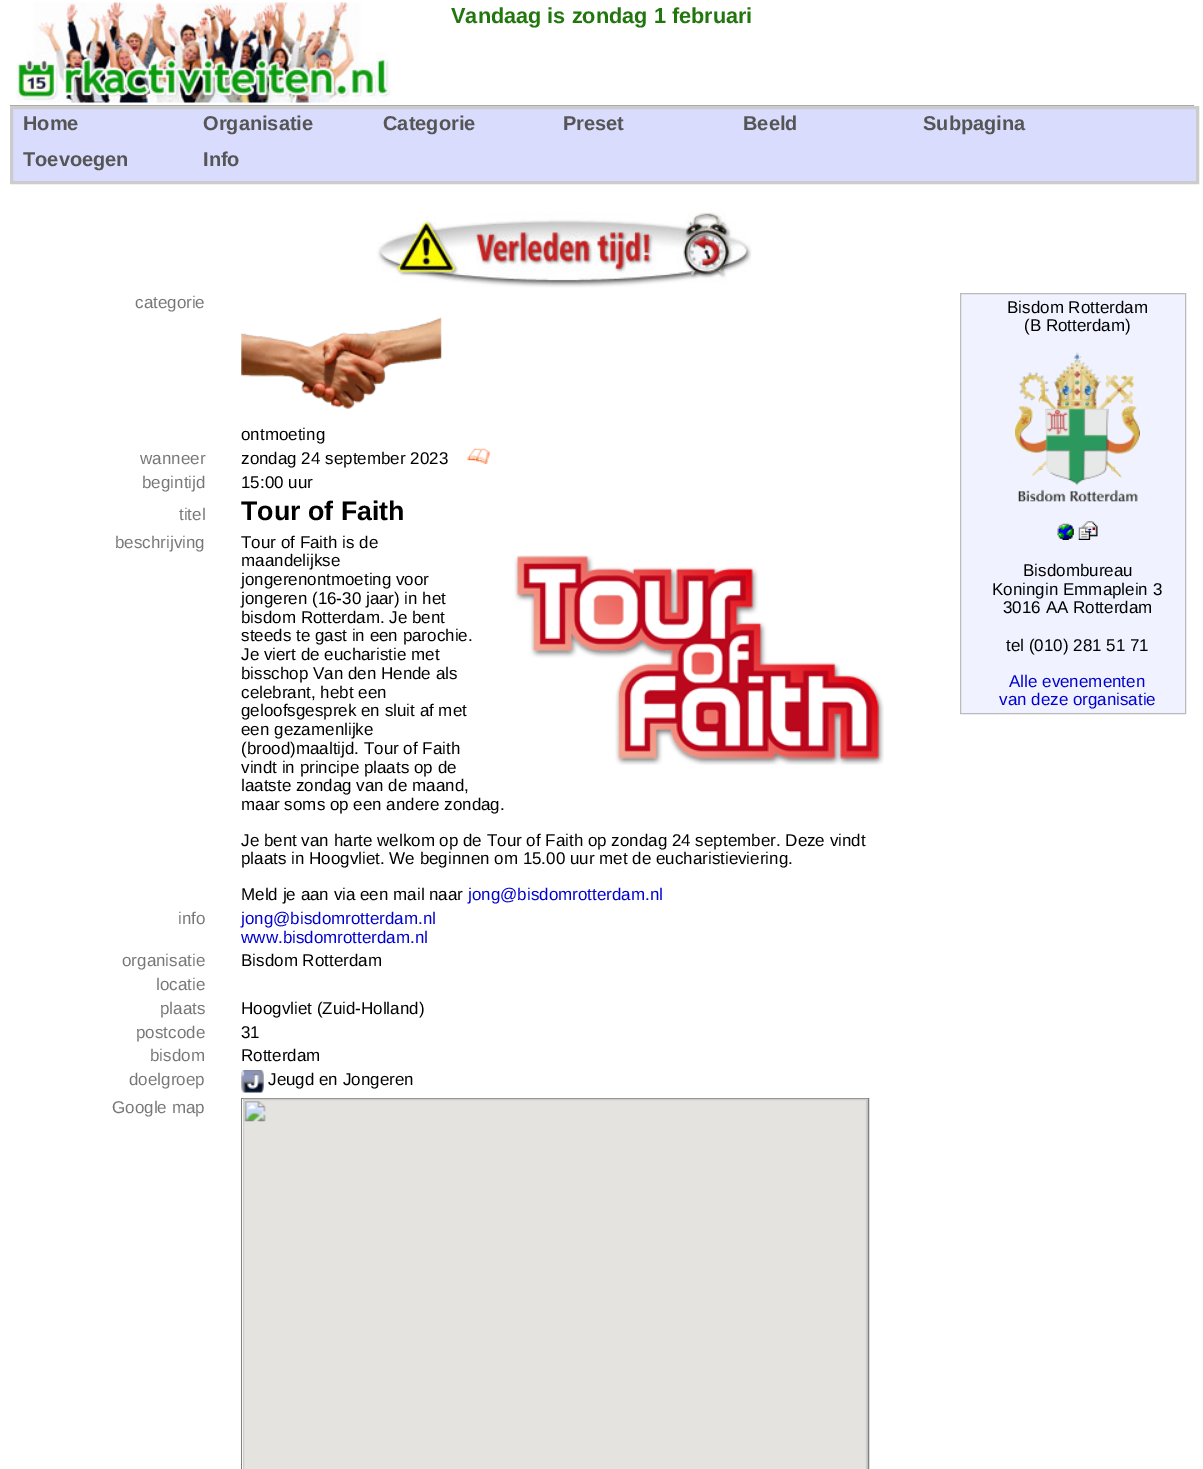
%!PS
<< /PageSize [1203 1469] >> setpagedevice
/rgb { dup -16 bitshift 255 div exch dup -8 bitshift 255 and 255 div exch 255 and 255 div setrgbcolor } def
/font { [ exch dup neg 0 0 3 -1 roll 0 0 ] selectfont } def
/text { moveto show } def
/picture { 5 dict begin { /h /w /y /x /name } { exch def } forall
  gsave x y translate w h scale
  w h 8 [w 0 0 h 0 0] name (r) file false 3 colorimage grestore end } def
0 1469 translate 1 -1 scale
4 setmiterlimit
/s1 { /LiberationSans-Bold 21.7 font 16#21770D rgb } def
/s2 { /LiberationSans-Bold 20 font 16#555555 rgb } def
/s3 { /LiberationSans-Regular 17 font 16#777777 rgb } def
/s4 { /LiberationSans-Regular 17 font 16#000000 rgb } def
/s5 { /LiberationSans-Regular 17 font 16#0000CF rgb } def
/s6 { /LiberationSans-Bold 26.75 font 16#000000 rgb } def
16#FFFFFF rgb
0 0 1203 1469 rectfill
16#AAAAAA rgb
10 105 1184 1 rectfill
(pic1.raw) 16 2 375 101 picture
s1
(Vandaag is zondag 1 februari) 451 23 text
16#DADCFE rgb
11.5 107.5 moveto 1197.5 107.5 lineto 1197.5 182.5 lineto 11.5 182.5 lineto closepath gsave fill grestore
16#CCCCCC rgb
3 setlinewidth
stroke
s2
(Home) 23 130 text
(Organisatie) 203 130 text
(Categorie) 383 130 text
(Preset) 563 130 text
(Beeld) 743 130 text
(Subpagina) 923 130 text
(Toevoegen) 23 166 text
(Info) 203 166 text
(pic2.raw) 376 212 376 76 picture
s3
(categorie) 135 308 text
(pic3.raw) 241 317 201 92 picture
s4
(ontmoeting) 241 440 text
16#F0F2FF rgb
960.5 293.5 moveto 1185.5 293.5 lineto 1185.5 713.5 lineto 960.5 713.5 lineto closepath gsave fill grestore
16#BBBBBB rgb
1 setlinewidth
stroke
s4
(Bisdom Rotterdam) 1007 313 text
(\(B Rotterdam\)) 1024 331 text
(pic4.raw) 1015 352 125 150 picture
(pic5.raw) 1057 523 17 17 picture
(pic6.raw) 1078 521 20 19 picture
(Bisdombureau) 1023 576 text
(Koningin Emmaplein 3) 992 595 text
(3016 AA Rotterdam) 1003 613 text
(tel \(010\) 281 51 71) 1006 651 text
s5
(Alle evenementen) 1009 687 text
(van deze organisatie) 999 705 text
s3
(wanneer) 140 464 text
s4
(zondag 24 september 2023) 241 464 text
(pic7.raw) 467 448 23 16 picture
s3
(begintijd) 142 488 text
s4
(15:00 uur) 241 488 text
s3
(titel) 179 520 text
s6
(Tour of Faith) 241 520 text
s3
(beschrijving) 115 548 text
s4
(Tour of Faith is de) 241 548 text
(maandelijkse) 241 566 text
(jongerenontmoeting voor) 241 585 text
(jongeren \(16-30 jaar\) in het) 241 604 text
(bisdom Rotterdam. Je bent) 241 623 text
(steeds te gast in een parochie.) 241 641 text
(Je viert de eucharistie met) 241 660 text
(bisschop Van den Hende als) 241 679 text
(celebrant, hebt een) 241 698 text
(geloofsgesprek en sluit af met) 241 716 text
(een gezamenlijke) 241 735 text
(\(brood\)maaltijd. Tour of Faith) 241 754 text
(vindt in principe plaats op de) 241 773 text
(laatste zondag van de maand,) 241 791 text
(maar soms op een andere zondag.) 241 810 text
(pic8.raw) 514 555 370 210 picture
(Je bent van harte welkom op de Tour of Faith op zondag 24 september. Deze vindt) 241 846 text
(plaats in Hoogvliet. We beginnen om 15.00 uur met de eucharistieviering.) 241 864 text
(Meld je aan via een mail naar) 241 900 text
s5
(jong@bisdomrotterdam.nl) 468 900 text
s3
(info) 178 924 text
s5
(jong@bisdomrotterdam.nl) 241 924 text
(www.bisdomrotterdam.nl) 241 943 text
s3
(organisatie) 122 966 text
s4
(Bisdom Rotterdam) 241 966 text
s3
(locatie) 156 990 text
(plaats) 160 1014 text
s4
(Hoogvliet \(Zuid-Holland\)) 241 1014 text
s3
(postcode) 136 1038 text
s4
(31) 241 1038 text
s3
(bisdom) 150 1061 text
s4
(Rotterdam) 241 1061 text
s3
(doelgroep) 129 1085 text
(pic9.raw) 241 1070 23 23 picture
s4
(Jeugd en Jongeren) 268 1085 text
s3
(Google map) 112 1113 text
16#808080 rgb
241.5 1098.5 627 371 rectstroke
(pic10.raw) 242 1098 626 371 picture
showpage
